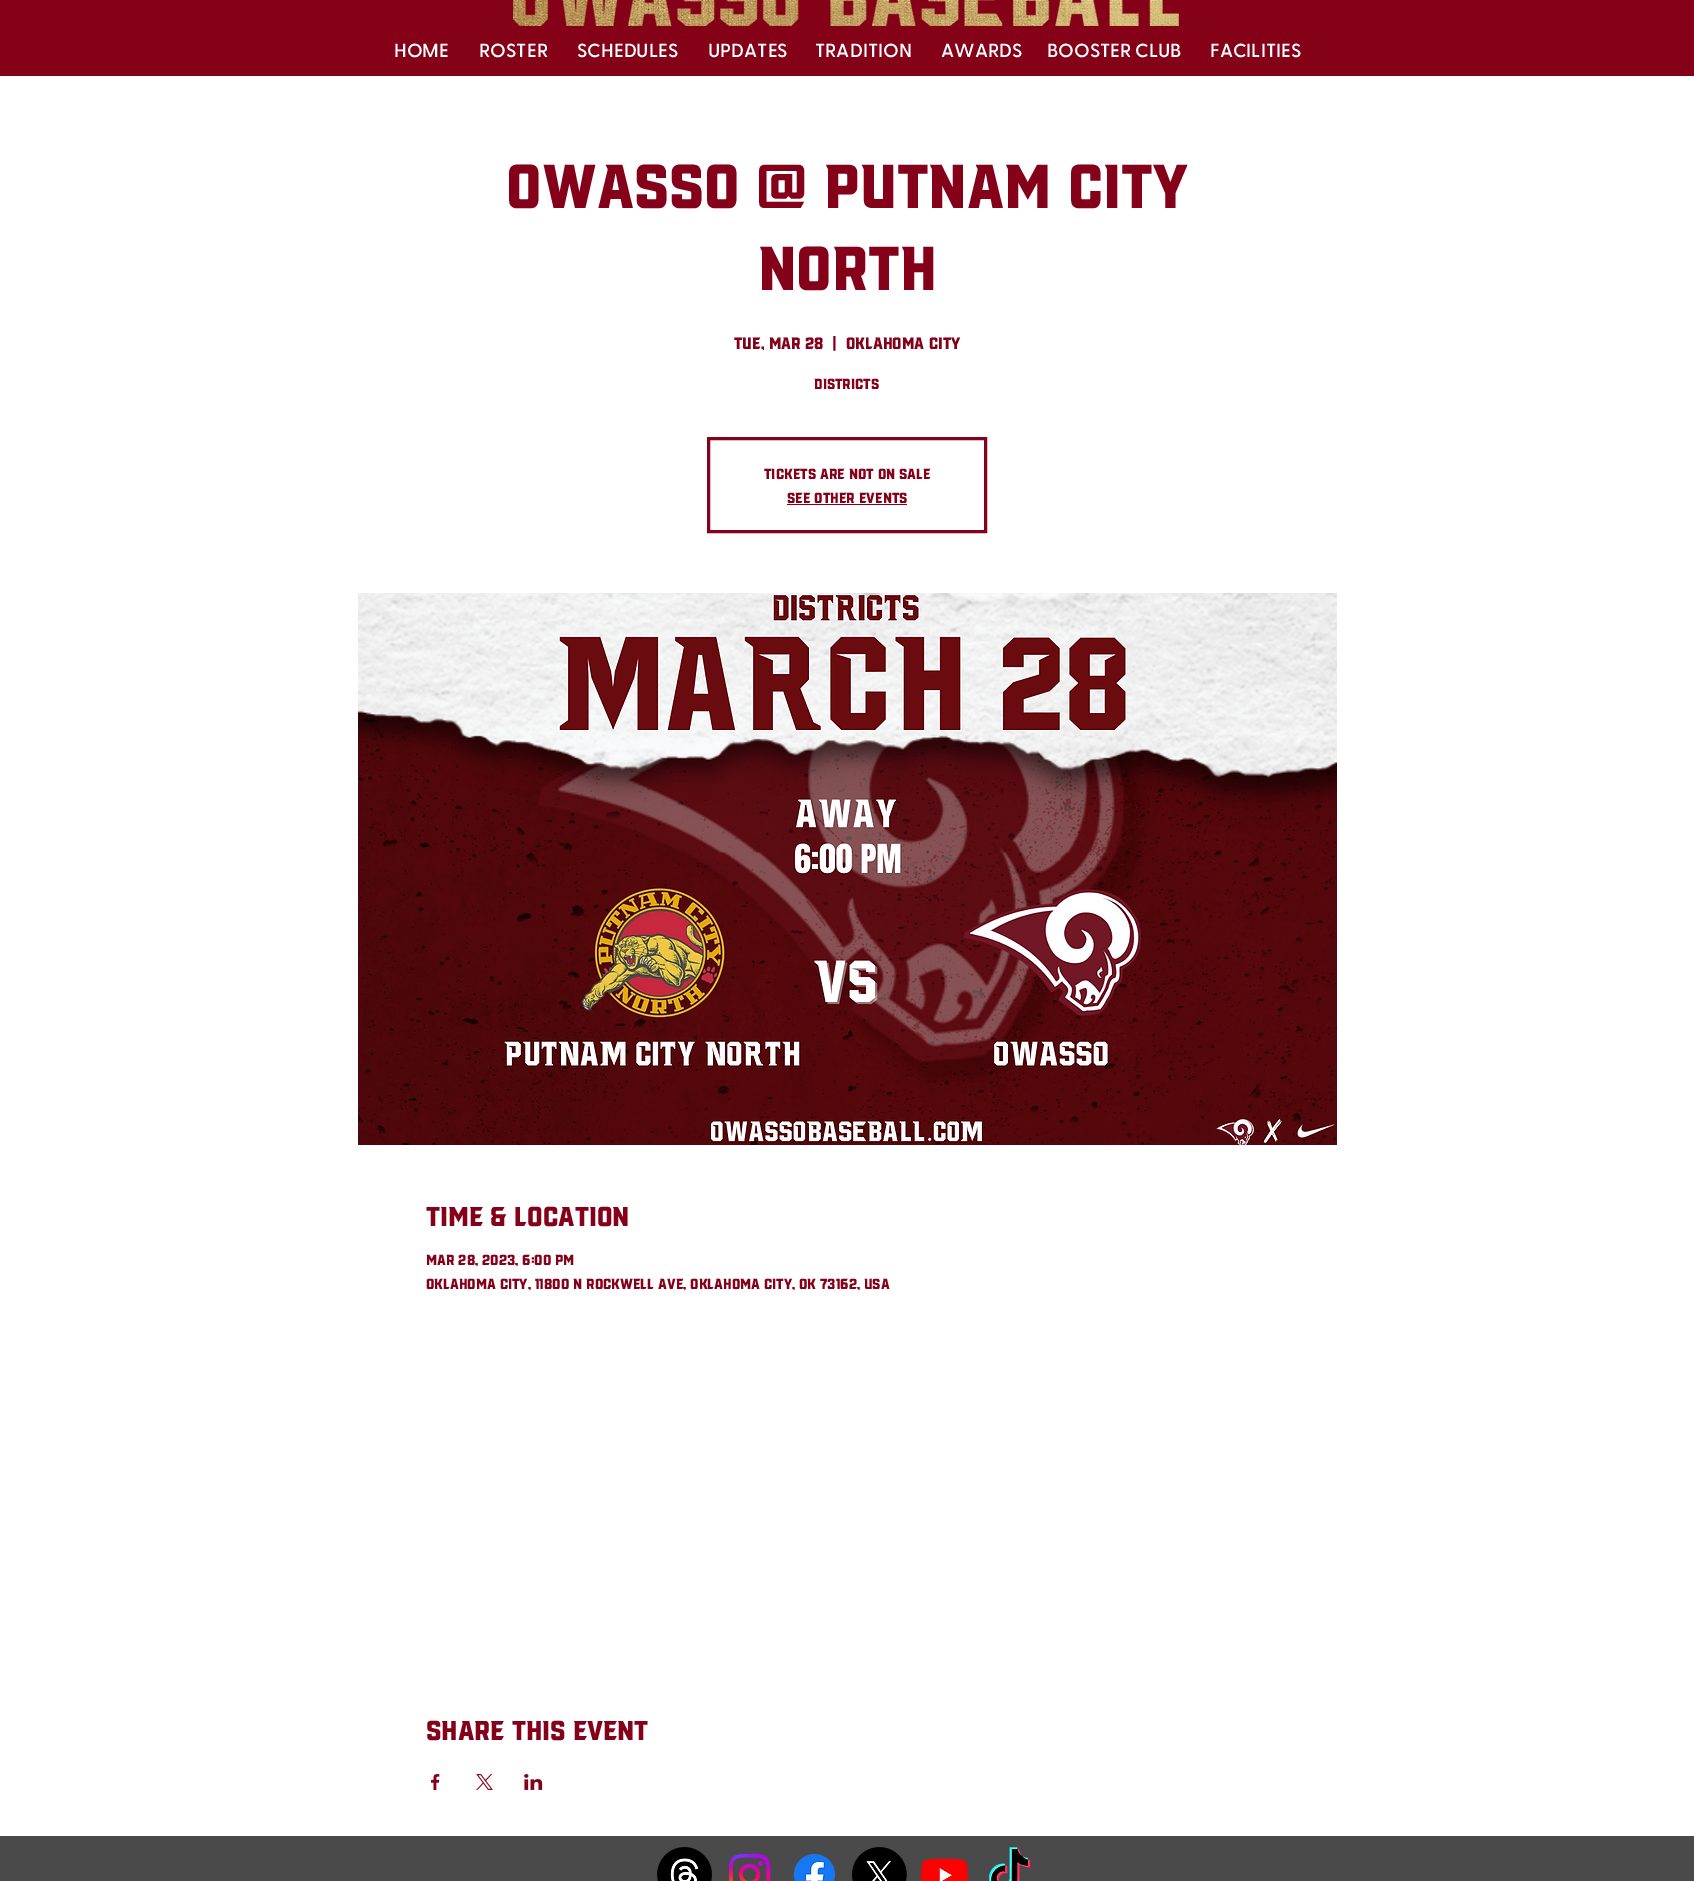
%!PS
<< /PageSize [1694 1881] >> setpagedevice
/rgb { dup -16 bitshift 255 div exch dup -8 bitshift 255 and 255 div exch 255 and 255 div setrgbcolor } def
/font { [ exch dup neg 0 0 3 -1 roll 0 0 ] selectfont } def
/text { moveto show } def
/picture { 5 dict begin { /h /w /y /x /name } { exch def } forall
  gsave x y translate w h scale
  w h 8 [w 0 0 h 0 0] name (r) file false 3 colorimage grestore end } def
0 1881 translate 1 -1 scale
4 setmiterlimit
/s1 { /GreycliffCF-SemiBold 19 font 16#FFFFFF rgb } def
/s2 { /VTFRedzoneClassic-Regular 68 font 16#850019 rgb } def
/s3 { /VTFRedzoneClassic-Regular 18 font 16#850019 rgb } def
/s4 { /VTFRedzoneClassic-Regular 16 font 16#850019 rgb } def
/s5 { /VTFRedzoneClassic-Regular 30 font 16#850019 rgb } def
16#4A4A4A rgb
0 0 1694 1881 rectfill
16#840118 rgb
0 0 1694 76 rectfill
(pic1.raw) 513 0 666 26 picture
s1
(HOME) 394 57 text
(ROSTER) 479 57 text
(SCHEDULES) 577 57 text
(UPDATES) 708 57 text
(TRADITION) 815 57 text
(AWARDS) 941 57 text
(BOOSTER CLUB) 1047 57 text
(FACILITIES) 1210 57 text
0 76 1694 1760 rectfill
s2
(Owasso @ Putnam City) 506 208 text
(North) 758 290 text
s3
(Tue, Mar 28) 734 349 text
(|) 832 349 text
(Oklahoma City) 846 349 text
s4
(Districts) 814 389 text
3 setlinewidth
708.5 438.5 277 93 rectstroke
(Tickets are not on sale) 764 479 text
(See other events) 787 503 text
787 504 120 1 rectfill
(pic2.raw) 358 593 979 552 picture
s5
(Time & Location) 426 1226 text
s4
(Mar 28, 2023, 6:00 PM) 426 1265 text
(Oklahoma City, 11800 N Rockwell Ave, Oklahoma City, OK 73162, USA) 426 1289 text
s5
(Share this event) 426 1740 text
(pic3.raw) 431 1774 9 16 picture
(pic4.raw) 476 1774 17 16 picture
(pic5.raw) 524 1774 19 16 picture
(pic6.raw) 657 1847 55 34 picture
(pic7.raw) 728 1853 43 28 picture
(pic8.raw) 793 1853 43 28 picture
(pic9.raw) 852 1847 55 34 picture
(pic10.raw) 921 1858 47 23 picture
(pic11.raw) 988 1847 43 34 picture
showpage
